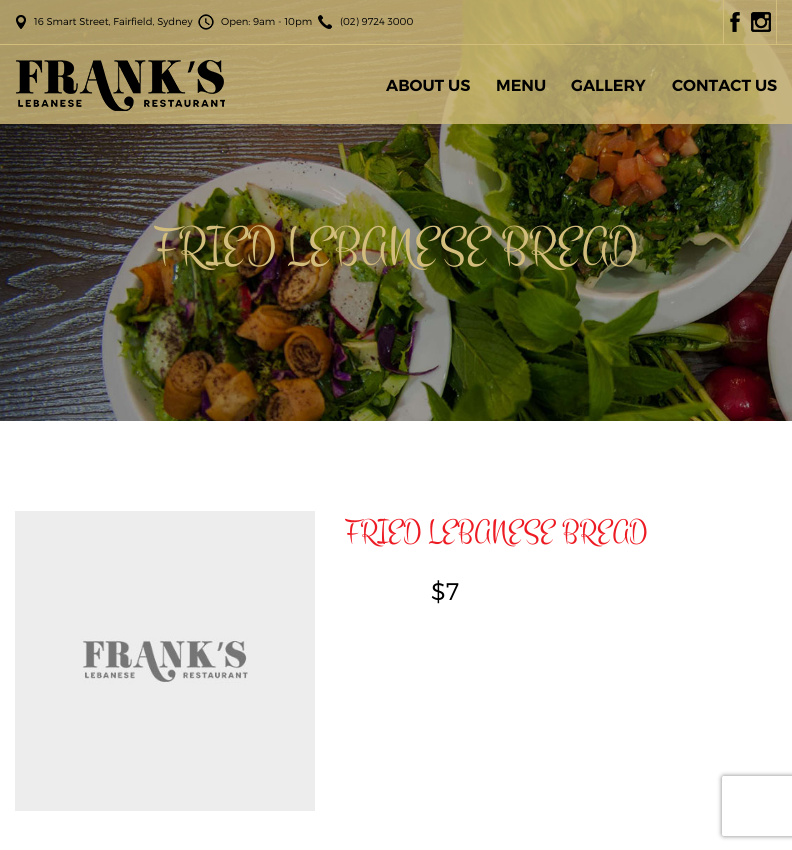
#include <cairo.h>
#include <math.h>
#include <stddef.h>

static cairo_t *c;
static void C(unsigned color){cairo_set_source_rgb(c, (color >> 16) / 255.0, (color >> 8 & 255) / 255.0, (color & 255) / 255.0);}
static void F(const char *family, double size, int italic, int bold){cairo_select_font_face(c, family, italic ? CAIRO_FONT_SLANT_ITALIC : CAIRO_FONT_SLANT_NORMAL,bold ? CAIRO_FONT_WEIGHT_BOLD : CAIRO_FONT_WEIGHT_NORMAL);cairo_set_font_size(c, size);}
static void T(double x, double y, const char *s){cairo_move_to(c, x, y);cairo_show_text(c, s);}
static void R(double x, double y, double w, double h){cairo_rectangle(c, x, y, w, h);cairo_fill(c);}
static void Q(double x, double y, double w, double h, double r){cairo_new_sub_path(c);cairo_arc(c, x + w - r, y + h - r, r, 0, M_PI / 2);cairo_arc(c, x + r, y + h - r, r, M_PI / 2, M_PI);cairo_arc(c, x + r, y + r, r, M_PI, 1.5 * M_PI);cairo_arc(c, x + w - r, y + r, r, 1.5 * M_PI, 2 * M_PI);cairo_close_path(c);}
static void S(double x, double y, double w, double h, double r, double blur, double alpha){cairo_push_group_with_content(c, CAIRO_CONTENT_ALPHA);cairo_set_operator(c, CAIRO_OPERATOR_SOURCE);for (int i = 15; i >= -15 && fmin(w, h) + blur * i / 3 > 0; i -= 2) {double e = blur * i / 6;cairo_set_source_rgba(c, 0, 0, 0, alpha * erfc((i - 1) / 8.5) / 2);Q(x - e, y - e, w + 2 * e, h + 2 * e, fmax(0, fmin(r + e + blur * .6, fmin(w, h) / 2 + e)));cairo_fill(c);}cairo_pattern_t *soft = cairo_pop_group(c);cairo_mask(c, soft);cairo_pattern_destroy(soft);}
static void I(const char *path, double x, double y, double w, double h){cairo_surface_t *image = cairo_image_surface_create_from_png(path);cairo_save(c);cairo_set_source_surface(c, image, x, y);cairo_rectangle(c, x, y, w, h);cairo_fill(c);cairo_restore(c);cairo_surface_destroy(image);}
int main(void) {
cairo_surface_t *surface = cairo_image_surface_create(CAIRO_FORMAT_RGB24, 792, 850);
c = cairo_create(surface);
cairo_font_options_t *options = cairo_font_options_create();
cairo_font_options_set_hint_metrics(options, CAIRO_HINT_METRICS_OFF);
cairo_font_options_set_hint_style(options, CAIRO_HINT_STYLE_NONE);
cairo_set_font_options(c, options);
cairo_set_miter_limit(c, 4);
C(0xffffff);
cairo_paint(c);
I("7.png",0,0,792,421);
cairo_set_source_rgba(c,0.824,0.741,0.486,0.8);
R(0,0,792,44);
C(0xd2bd7c);
R(0,44,792,1);
I("1.png",16,15,10,14);
F("Montserrat Light",10,0,0);
C(0x000000);
T(34,25,"16 Smart Street, Fairfield, Sydney");
I("2.png",198,14,16,16);
T(221,25,"Open: 9am - 10pm");
I("3.png",318,15,14,14);
T(340,25,"(02) 9724 3000");
C(0xd2bd7c);
R(776,0,1,44);
R(723,0,1,44);
I("4.png",730,12,10,20);
I("5.png",751,12,20,20);
cairo_set_source_rgba(c,0.824,0.741,0.486,0.8);
R(0,45,792,79);
I("6.png",16,60,209,51);
F("Montserrat SemiBold",16,0,0);
C(0x000000);
T(386,91,"ABOUT US");
T(496,91,"MENU");
T(571,91,"GALLERY");
T(672,91,"CONTACT US");
F("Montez",48,0,0);
C(0xd2bd7c);
T(154,258,"FRIED LEBANESE BREAD");
I("8.png",15,511,300,300);
F("Montez",30,0,0);
C(0xed1c24);
T(345,539,"FRIED LEBANESE BREAD");
F("Montserrat Light",24,0,0);
C(0x000000);
T(431,600,"$7");
cairo_save(c);
cairo_set_fill_rule(c,CAIRO_FILL_RULE_EVEN_ODD);
cairo_new_path(c);
cairo_move_to(c,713,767);
cairo_line_to(c,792,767);
cairo_line_to(c,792,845);
cairo_line_to(c,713,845);
cairo_close_path(c);
cairo_move_to(c,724,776);
cairo_line_to(c,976,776);
cairo_curve_to(c,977,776,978,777,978,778);
cairo_line_to(c,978,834);
cairo_curve_to(c,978,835,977,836,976,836);
cairo_line_to(c,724,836);
cairo_curve_to(c,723,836,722,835,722,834);
cairo_line_to(c,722,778);
cairo_curve_to(c,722,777,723,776,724,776);
cairo_close_path(c);
cairo_clip(c);
C(0x808080);
S(722,776,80,60,2,2.5,1);
cairo_restore(c);
cairo_surface_write_to_png(surface, "o.png");
cairo_font_options_destroy(options);
cairo_destroy(c);
cairo_surface_destroy(surface);
return 0;
}
